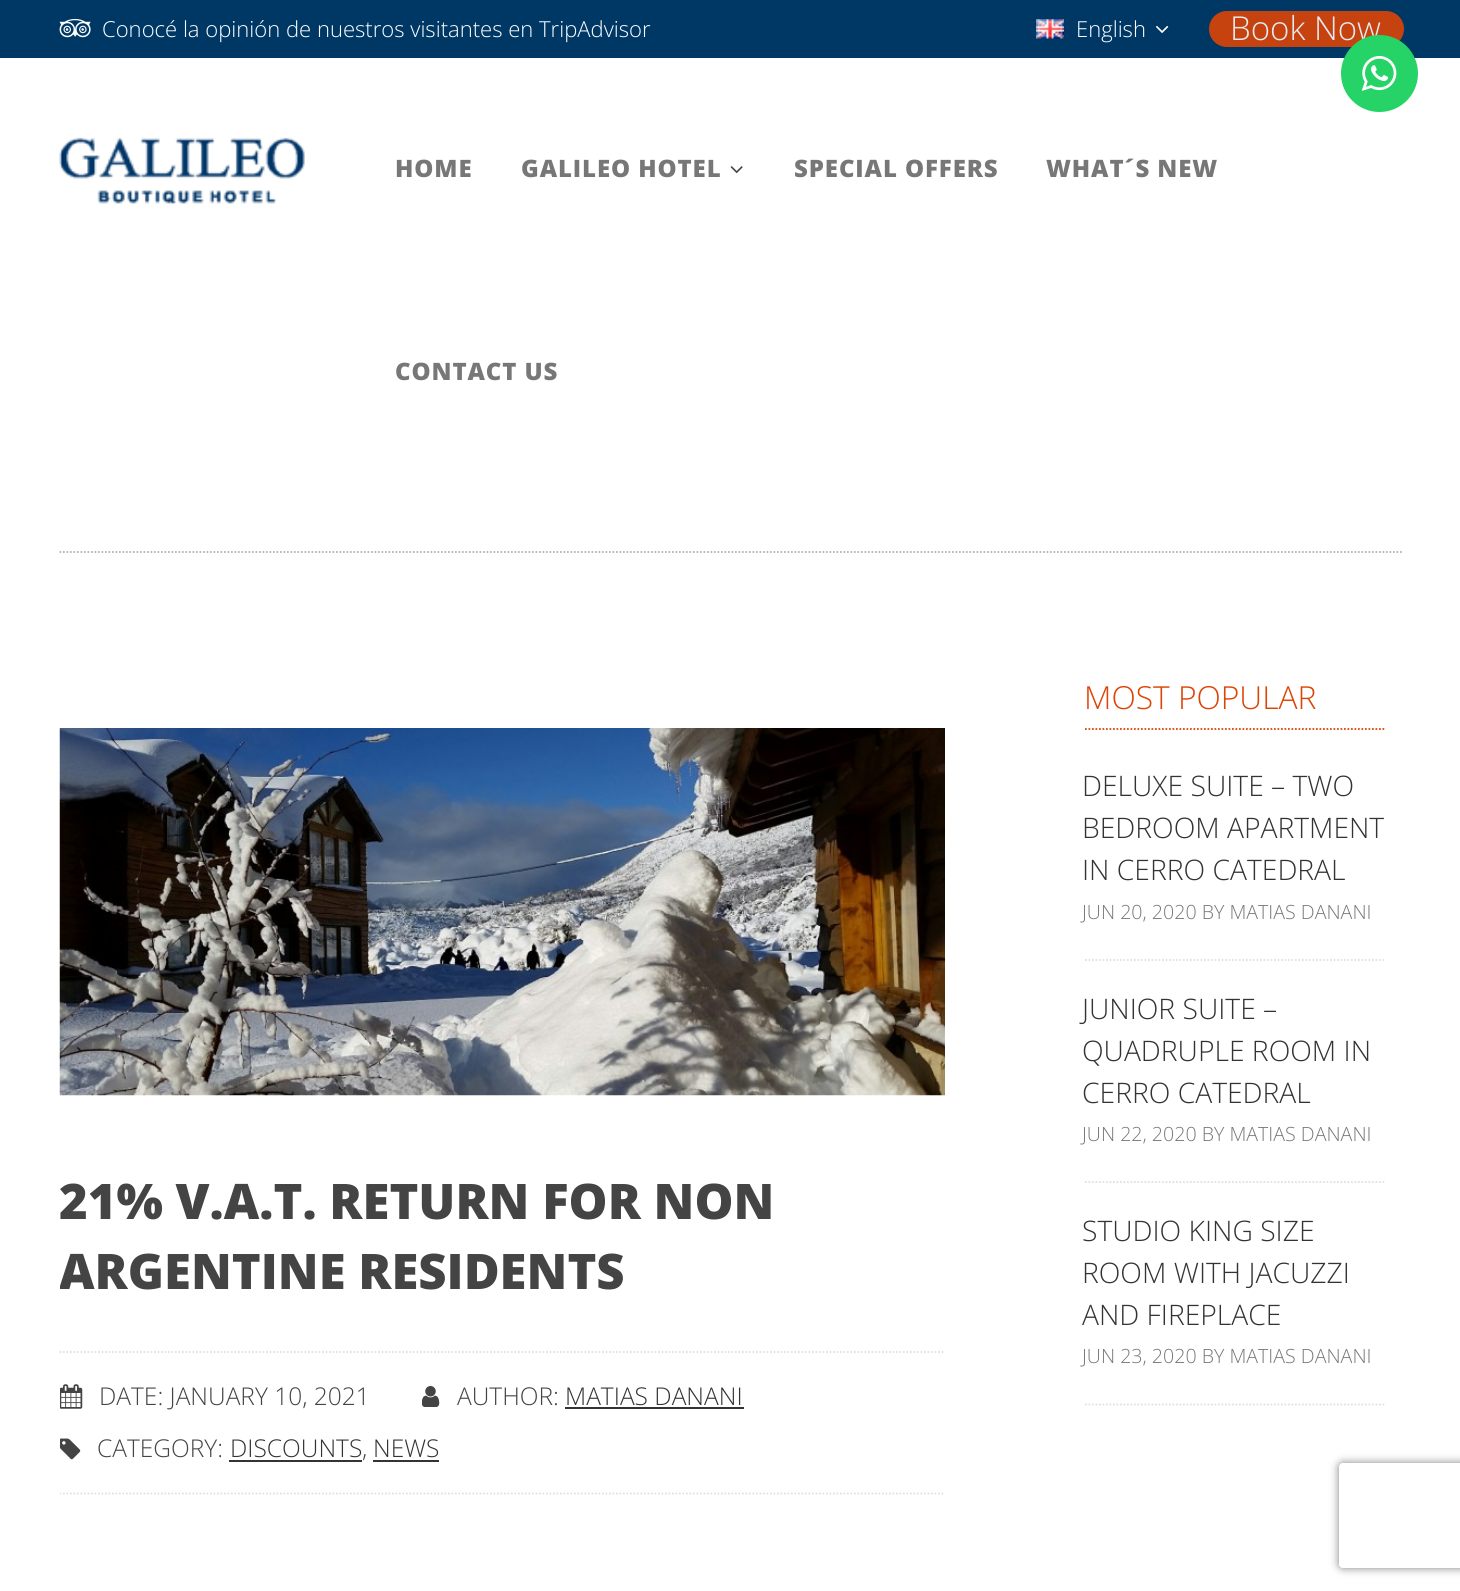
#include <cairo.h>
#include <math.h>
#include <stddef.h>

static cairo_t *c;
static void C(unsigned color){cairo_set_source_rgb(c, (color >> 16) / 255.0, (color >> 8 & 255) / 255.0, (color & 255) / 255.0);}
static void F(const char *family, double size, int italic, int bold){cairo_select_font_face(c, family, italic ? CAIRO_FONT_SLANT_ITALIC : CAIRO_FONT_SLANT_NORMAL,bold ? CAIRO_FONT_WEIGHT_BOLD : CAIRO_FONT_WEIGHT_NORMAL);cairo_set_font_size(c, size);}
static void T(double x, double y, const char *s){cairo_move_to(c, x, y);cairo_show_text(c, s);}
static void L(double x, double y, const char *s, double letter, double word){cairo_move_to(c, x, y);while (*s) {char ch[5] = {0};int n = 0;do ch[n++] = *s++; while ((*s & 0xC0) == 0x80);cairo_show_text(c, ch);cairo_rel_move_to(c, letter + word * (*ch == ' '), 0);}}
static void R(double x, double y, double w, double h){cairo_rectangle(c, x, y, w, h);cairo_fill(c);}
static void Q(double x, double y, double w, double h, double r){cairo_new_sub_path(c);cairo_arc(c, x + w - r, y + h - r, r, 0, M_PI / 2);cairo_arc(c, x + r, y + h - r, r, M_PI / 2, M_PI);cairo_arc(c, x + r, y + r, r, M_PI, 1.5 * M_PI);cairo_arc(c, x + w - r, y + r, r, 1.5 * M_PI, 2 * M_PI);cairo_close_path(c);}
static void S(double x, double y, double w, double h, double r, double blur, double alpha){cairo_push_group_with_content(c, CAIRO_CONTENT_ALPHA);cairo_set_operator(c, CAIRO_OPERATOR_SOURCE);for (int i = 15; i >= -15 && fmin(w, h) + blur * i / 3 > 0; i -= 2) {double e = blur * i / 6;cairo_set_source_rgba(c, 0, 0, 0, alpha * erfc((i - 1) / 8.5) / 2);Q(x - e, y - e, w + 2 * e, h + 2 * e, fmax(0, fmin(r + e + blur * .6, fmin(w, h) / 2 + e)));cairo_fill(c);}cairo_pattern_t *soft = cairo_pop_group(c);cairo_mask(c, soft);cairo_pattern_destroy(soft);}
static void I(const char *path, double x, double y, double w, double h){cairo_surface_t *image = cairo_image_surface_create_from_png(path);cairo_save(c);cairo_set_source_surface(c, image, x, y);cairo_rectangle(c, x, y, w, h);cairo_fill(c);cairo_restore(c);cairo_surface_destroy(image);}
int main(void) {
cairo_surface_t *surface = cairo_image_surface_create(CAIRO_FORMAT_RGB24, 1460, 1591);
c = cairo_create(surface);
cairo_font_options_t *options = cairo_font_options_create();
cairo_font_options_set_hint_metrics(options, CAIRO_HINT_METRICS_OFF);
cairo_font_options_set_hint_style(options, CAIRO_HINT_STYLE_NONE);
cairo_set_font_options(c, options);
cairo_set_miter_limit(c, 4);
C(0xffffff);
cairo_paint(c);
C(0x003865);
R(0,0,1460,58);
I("1.png",59,18,32,20);
F("Open Sans Light",22.05,0,0);
C(0xffffff);
T(102,37,"Conocé la opinión de nuestros visitantes en TripAdvisor");
I("2.png",1036,19,28,20);
T(1076,37,"English");
I("3.png",1156,25,13,8);
C(0xc6430f);
Q(1209,11,195,36,18);
cairo_fill(c);
F("Open Sans Light",33,0,0);
C(0xe6ebf0);
T(1230,40,"Book Now");
I("4.png",59,137,246,68);
F("Open Sans ExtraBold",24,0,0);
C(0x777777);
L(395,177,"HOME",.9,0);
L(521,177,"GALILEO HOTEL",.9,0);
I("5.png",730,166,13,8);
L(794,177,"SPECIAL OFFERS",.9,0);
L(1046,177,"WHAT´S NEW",.9,0);
L(395,380,"CONTACT US",.9,0);
cairo_new_path(c);
cairo_move_to(c,59.5,552);
cairo_line_to(c,1403.5,552);
C(0xb3b3b3);
cairo_set_line_width(c,1.8);
cairo_set_dash(c,(double[]){1.75,1.75},2,0);
cairo_stroke(c);
I("6.png",59,728,886,368);
F("Open Sans ExtraBold",49,0,0);
C(0x444444);
T(59,1219,"21% V.A.T. RETURN FOR NON");
cairo_save(c);
cairo_rectangle(c,60,1166,885,140);
cairo_clip(c);
T(59,1289,"ARGENTINE RESIDENTS");
cairo_restore(c);
cairo_new_path(c);
cairo_move_to(c,59.5,1352);
cairo_line_to(c,945,1352);
C(0xe0e0e0);
cairo_stroke(c);
cairo_save(c);
cairo_rectangle(c,60,676,885,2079);
cairo_clip(c);
cairo_new_path(c);
cairo_move_to(c,59.5,1493.5);
cairo_line_to(c,945,1493.5);
cairo_stroke(c);
cairo_restore(c);
I("7.png",60,1384,23,25);
F("Open Sans Light",24.5,0,0);
C(0x444444);
T(99,1405,"DATE: JANUARY 10, 2021");
I("8.png",422,1386,18,21);
T(457,1405,"AUTHOR:");
C(0x333333);
T(565,1405,"MATIAS DANANI");
R(565,1407,179,2);
I("9.png",60,1438,21,22);
C(0x444444);
T(97,1457,"CATEGORY:");
C(0x333333);
T(230,1457,"DISCOUNTS");
R(229,1460,133,2);
C(0x444444);
T(362,1457,",");
C(0x333333);
T(373,1457,"NEWS");
R(373,1460,66,2);
cairo_new_path(c);
cairo_move_to(c,1085,729);
cairo_line_to(c,1386,729);
C(0xdc4405);
cairo_stroke(c);
F("Open Sans Light",31.75,0,0);
T(1084,709,"MOST POPULAR");
cairo_new_path(c);
cairo_move_to(c,1085,960);
cairo_line_to(c,1386,960);
C(0xe0e0e0);
cairo_stroke(c);
F("Open Sans Light",28.25,0,0);
C(0x333333);
T(1082,796,"DELUXE SUITE – TWO");
T(1082,838,"BEDROOM APARTMENT");
T(1082,880,"IN CERRO CATEDRAL");
F("Open Sans Light",19.6,0,0);
C(0x777777);
T(1082,919,"JUN 20, 2020 BY MATIAS DANANI");
cairo_new_path(c);
cairo_move_to(c,1085,1182);
cairo_line_to(c,1386,1182);
C(0xe0e0e0);
cairo_stroke(c);
F("Open Sans Light",28.25,0,0);
C(0x333333);
T(1082,1019,"JUNIOR SUITE –");
T(1082,1061,"QUADRUPLE ROOM IN");
T(1082,1103,"CERRO CATEDRAL");
F("Open Sans Light",19.6,0,0);
C(0x777777);
T(1082,1141,"JUN 22, 2020 BY MATIAS DANANI");
cairo_new_path(c);
cairo_move_to(c,1085,1404.5);
cairo_line_to(c,1386,1404.5);
C(0xe0e0e0);
cairo_stroke(c);
F("Open Sans Light",28.25,0,0);
C(0x333333);
T(1082,1241,"STUDIO KING SIZE");
T(1082,1283,"ROOM WITH JACUZZI");
T(1082,1325,"AND FIREPLACE");
F("Open Sans Light",19.6,0,0);
C(0x777777);
T(1082,1363,"JUN 23, 2020 BY MATIAS DANANI");
C(0x25d366);
cairo_new_path(c);
cairo_arc(c,1379.5,73.5,38.5,0,2 * M_PI);
cairo_fill(c);
I("10.png",1362,56,35,35);
cairo_save(c);
cairo_set_fill_rule(c,CAIRO_FILL_RULE_EVEN_ODD);
cairo_new_path(c);
cairo_move_to(c,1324,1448);
cairo_line_to(c,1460,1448);
cairo_line_to(c,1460,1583);
cairo_line_to(c,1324,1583);
cairo_close_path(c);
cairo_move_to(c,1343,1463);
cairo_line_to(c,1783,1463);
cairo_curve_to(c,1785,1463,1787,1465,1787,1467);
cairo_line_to(c,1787,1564);
cairo_curve_to(c,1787,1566,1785,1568,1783,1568);
cairo_line_to(c,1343,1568);
cairo_curve_to(c,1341,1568,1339,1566,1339,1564);
cairo_line_to(c,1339,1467);
cairo_curve_to(c,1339,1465,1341,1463,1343,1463);
cairo_close_path(c);
cairo_clip(c);
C(0x808080);
S(1339,1463,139,105,4,4.5,1);
cairo_restore(c);
cairo_surface_write_to_png(surface, "o.png");
cairo_font_options_destroy(options);
cairo_destroy(c);
cairo_surface_destroy(surface);
return 0;
}
